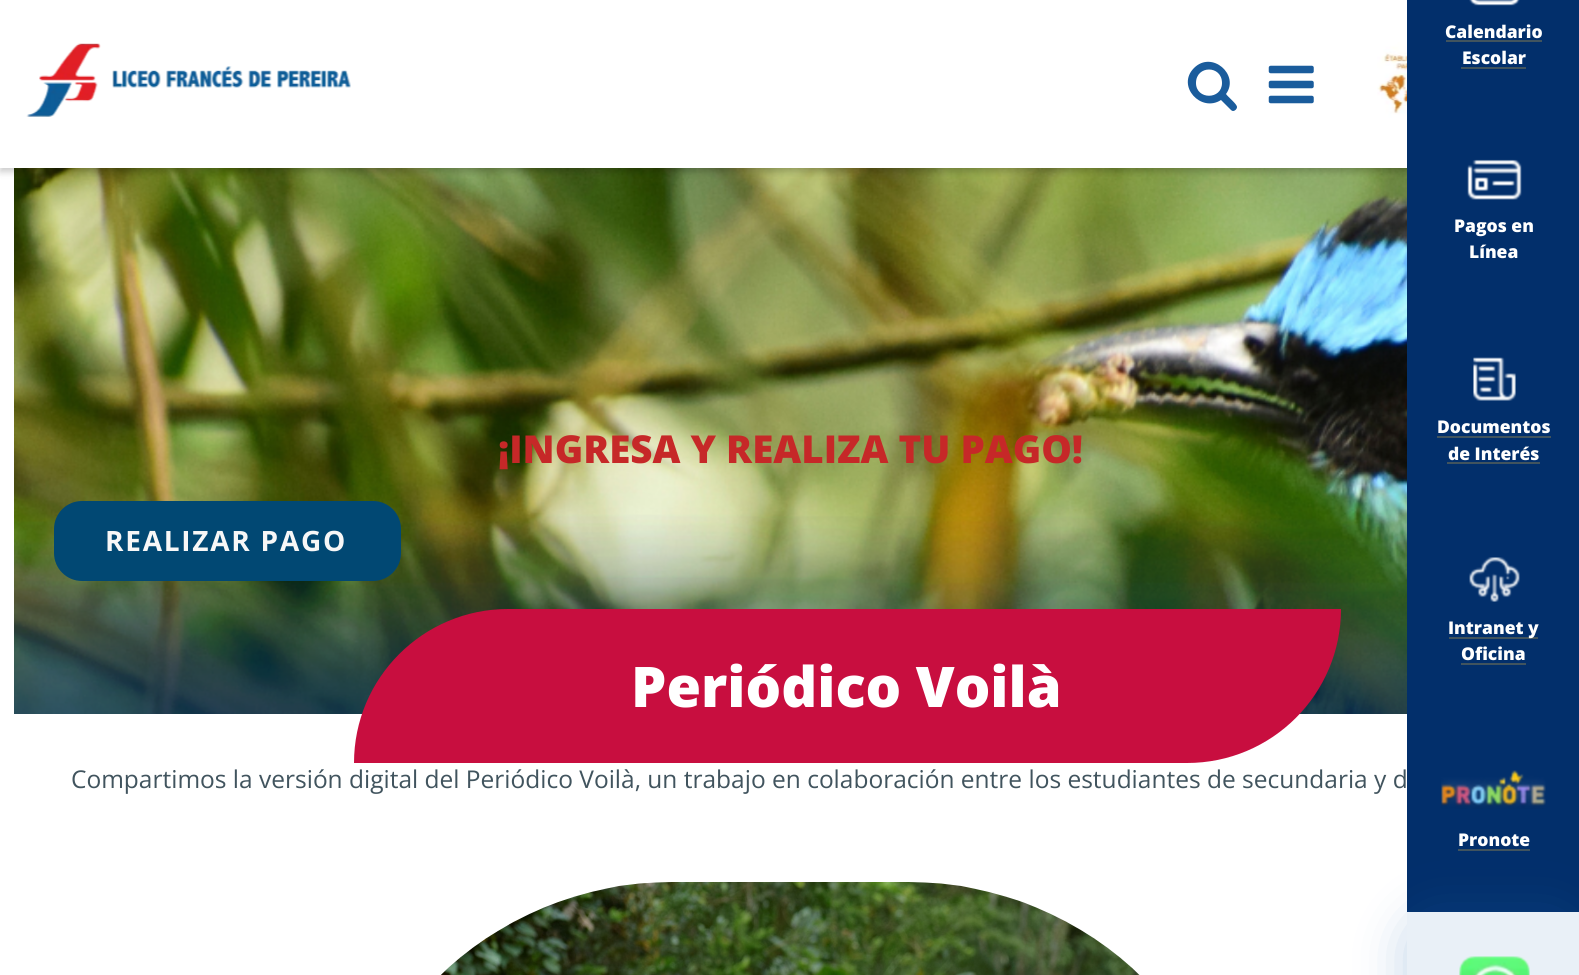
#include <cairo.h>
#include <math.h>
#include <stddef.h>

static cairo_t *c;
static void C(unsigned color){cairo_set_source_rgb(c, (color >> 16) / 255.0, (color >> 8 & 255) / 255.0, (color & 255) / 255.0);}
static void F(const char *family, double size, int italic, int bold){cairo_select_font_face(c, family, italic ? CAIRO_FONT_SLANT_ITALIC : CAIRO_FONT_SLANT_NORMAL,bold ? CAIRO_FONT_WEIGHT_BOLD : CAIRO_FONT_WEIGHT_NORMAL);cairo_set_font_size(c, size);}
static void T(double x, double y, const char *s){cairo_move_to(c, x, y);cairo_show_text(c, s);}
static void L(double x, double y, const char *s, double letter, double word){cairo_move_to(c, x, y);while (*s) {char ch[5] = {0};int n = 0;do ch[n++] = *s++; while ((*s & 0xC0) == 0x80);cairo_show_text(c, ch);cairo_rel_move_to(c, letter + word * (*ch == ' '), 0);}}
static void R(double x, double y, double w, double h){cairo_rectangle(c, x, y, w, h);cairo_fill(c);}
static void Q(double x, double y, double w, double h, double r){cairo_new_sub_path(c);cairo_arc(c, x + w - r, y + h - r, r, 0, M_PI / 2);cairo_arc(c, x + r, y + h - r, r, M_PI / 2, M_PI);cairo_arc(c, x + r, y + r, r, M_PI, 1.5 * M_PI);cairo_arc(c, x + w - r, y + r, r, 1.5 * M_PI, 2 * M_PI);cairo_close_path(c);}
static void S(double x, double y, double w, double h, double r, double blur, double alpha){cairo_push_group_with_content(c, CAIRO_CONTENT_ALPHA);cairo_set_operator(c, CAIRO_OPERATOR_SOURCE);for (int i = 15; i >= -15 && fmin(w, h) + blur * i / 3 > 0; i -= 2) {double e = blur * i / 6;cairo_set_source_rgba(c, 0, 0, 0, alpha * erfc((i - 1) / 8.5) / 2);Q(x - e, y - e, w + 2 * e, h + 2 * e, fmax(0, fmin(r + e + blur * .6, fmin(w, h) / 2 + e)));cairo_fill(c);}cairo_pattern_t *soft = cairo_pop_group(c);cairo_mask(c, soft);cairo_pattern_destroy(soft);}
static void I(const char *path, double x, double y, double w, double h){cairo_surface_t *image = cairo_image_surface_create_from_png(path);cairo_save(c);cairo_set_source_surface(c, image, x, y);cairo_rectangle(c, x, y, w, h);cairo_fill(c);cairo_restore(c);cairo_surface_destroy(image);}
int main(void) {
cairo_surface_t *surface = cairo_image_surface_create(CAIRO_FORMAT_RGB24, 1579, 975);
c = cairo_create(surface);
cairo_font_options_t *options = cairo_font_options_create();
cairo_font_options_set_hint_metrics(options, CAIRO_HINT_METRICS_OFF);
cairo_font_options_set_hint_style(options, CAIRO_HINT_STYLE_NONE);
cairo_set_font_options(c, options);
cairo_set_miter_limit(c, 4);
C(0xffffff);
cairo_paint(c);
I("4.png",14,168,1393,546);
C(0x000000);
S(0,4,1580,168,0,3.5,.2);
C(0xffffff);
R(0,0,1407,168);
I("1.png",26,43,325,74);
C(0x1a5c9c);
cairo_new_path(c);
cairo_move_to(c,1222,83);
cairo_curve_to(c,1222,100,1196,100,1196,83);
cairo_curve_to(c,1196,65,1222,65,1222,83);
cairo_close_path(c);
cairo_move_to(c,1237,107);
cairo_curve_to(c,1237,104,1228,97,1226,94);
cairo_curve_to(c,1240,75,1212,50,1194,68);
cairo_curve_to(c,1176,86,1201,113,1221,100);
cairo_line_to(c,1231,110);
cairo_curve_to(c,1231,110,1232,111,1233,111);
cairo_curve_to(c,1235,111,1237,109,1237,107);
cairo_close_path(c);
cairo_fill(c);
I("2.png",1268,65,46,39);
I("3.png",1377,39,30,83);
C(0x022f6b);
R(1407,0,172,912);
I("5.png",1469,0,51,6);
F("Open Sans ExtraBold",17.5,0,0);
C(0xffffff);
T(1445,38,"Calendario");
C(0x41545e);
R(1446,40,96,2);
C(0xffffff);
T(1462,64,"Escolar");
C(0x41545e);
R(1461,67,65,2);
I("6.png",1467,159,55,41);
C(0xffffff);
T(1454,232,"Pagos en");
T(1469,258,"Línea");
I("7.png",1473,357,43,44);
T(1437,433,"Documentos");
C(0x41545e);
R(1437,436,114,2);
C(0xffffff);
T(1448,460,"de Interés");
C(0x41545e);
R(1447,462,93,2);
I("8.png",1469,557,51,45);
R(1449,637,89,2);
C(0xffffff);
T(1448,634,"Intranet y");
T(1461,660,"Oficina");
C(0x41545e);
R(1461,663,65,2);
I("9.png",1441,770,105,39);
C(0xffffff);
T(1458,846,"Pronote");
C(0x41545e);
R(1458,849,72,2);
C(0x1f65af);
S(1407,915,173,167,30,25.5,.28);
C(0xe9f0f7);
R(1407,912,172,63);
I("10.png",1459,956,71,19);
C(0xc80e3f);
cairo_new_path(c);
cairo_move_to(c,508,609);
cairo_line_to(c,1341,609);
cairo_curve_to(c,1341,694,1272,763,1187,763);
cairo_line_to(c,354,763);
cairo_curve_to(c,354,678,423,609,508,609);
cairo_close_path(c);
cairo_fill(c);
F("Open Sans ExtraBold",56,0,0);
C(0xffffff);
T(631,707,"Periódico Voilà");
F("Open Sans",24.5,0,0);
C(0x41545e);
T(71,788,"Compartimos la versión digital del Periódico Voilà, un trabajo en colaboración entre los estudiantes de secundaria y d");
I("11.png",441,882,699,93);
F("Open Sans ExtraBold",38.5,0,0);
C(0xc62828);
T(498,463,"¡INGRESA Y REALIZA TU PAGO!");
C(0x014873);
Q(56,503,343,76,26);
cairo_fill_preserve(c);
cairo_set_line_width(c,4);
cairo_stroke(c);
F("Open Sans",28,0,1);
C(0xf7f7f7);
L(105,551,"REALIZAR PAGO",1.75,0);
cairo_surface_write_to_png(surface, "o.png");
cairo_font_options_destroy(options);
cairo_destroy(c);
cairo_surface_destroy(surface);
return 0;
}
